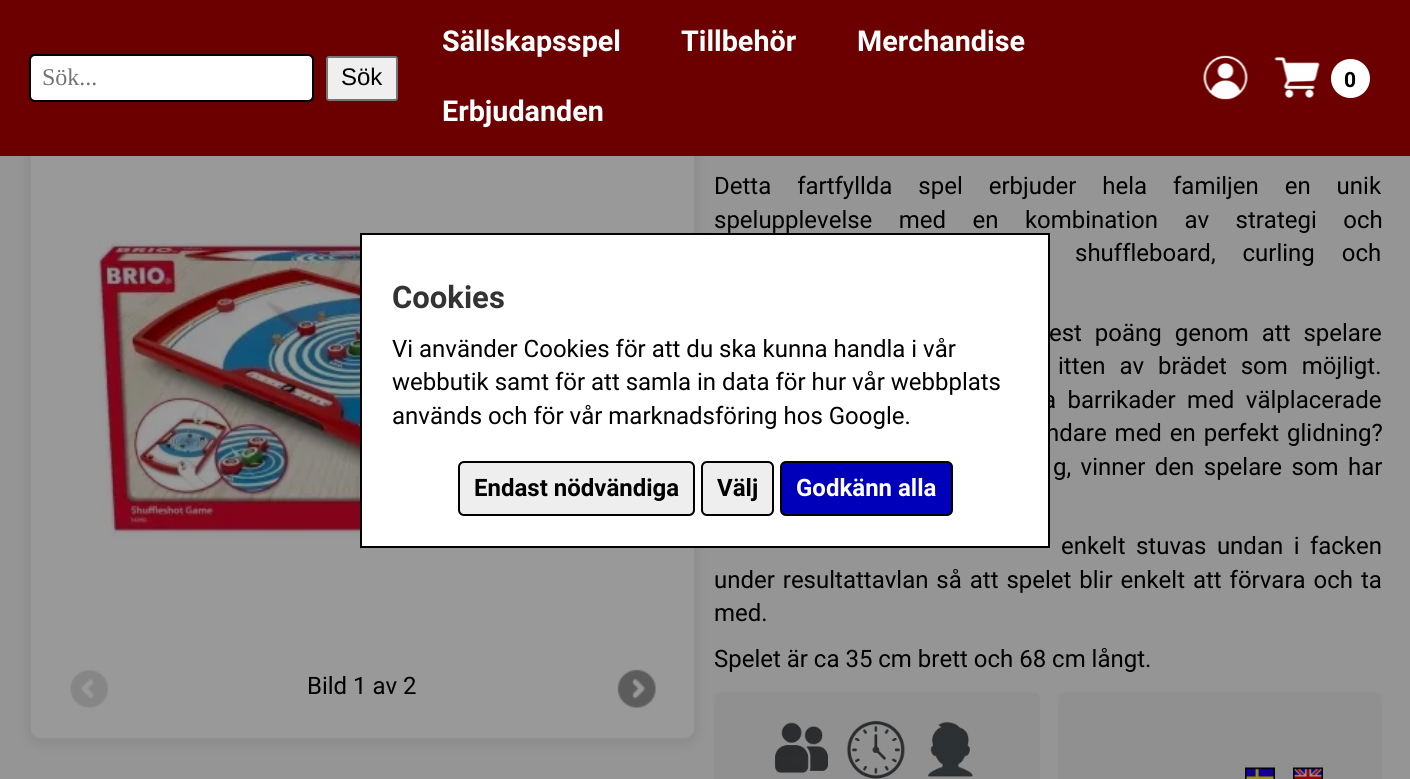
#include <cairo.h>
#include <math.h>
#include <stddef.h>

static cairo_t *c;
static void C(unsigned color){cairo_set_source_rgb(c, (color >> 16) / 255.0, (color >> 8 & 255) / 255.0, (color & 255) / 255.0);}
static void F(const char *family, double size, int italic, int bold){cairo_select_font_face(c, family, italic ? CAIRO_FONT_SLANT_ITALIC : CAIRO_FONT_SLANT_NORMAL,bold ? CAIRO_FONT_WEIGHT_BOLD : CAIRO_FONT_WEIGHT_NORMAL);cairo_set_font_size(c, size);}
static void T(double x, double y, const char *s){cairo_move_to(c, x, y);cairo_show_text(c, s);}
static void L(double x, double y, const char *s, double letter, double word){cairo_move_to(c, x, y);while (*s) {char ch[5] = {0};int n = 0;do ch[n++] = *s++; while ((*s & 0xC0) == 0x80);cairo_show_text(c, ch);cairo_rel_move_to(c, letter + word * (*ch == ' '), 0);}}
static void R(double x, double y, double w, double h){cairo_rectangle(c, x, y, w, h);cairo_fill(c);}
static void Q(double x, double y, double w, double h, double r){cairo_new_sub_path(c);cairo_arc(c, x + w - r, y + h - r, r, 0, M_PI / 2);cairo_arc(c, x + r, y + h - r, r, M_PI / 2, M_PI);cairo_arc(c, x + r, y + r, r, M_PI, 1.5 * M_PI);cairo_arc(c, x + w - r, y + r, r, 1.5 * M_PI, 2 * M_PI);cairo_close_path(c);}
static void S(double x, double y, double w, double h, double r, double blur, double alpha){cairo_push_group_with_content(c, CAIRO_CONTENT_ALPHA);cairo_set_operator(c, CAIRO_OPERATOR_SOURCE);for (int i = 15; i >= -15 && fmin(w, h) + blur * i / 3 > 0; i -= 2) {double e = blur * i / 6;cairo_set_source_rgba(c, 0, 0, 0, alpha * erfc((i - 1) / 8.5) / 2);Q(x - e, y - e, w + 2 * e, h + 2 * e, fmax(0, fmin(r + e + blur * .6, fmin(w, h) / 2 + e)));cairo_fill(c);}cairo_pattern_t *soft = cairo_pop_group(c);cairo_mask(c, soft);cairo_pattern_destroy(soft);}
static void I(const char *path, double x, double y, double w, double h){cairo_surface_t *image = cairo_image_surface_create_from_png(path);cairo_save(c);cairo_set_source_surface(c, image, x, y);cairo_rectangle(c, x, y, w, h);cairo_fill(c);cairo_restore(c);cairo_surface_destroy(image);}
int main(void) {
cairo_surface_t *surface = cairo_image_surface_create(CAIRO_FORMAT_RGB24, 1410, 779);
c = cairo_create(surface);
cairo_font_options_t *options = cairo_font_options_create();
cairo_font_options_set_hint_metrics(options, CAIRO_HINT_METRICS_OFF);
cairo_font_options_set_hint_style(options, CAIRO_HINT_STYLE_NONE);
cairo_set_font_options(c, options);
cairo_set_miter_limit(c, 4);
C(0x959595);
cairo_paint(c);
C(0x000000);
S(29,116,667,627,12,6,.1);
C(0x999999);
Q(30,114,665,625,11);
cairo_fill_preserve(c);
C(0x8f8f8f);
cairo_stroke(c);
C(0x6c0000);
R(0,0,1410,156);
C(0x000000);
S(29,56,285,48,6,1.5,.1);
C(0xffffff);
Q(30,55,283,46,5);
cairo_fill_preserve(c);
C(0x000000);
cairo_stroke(c);
F("Liberation Serif",24,0,0);
C(0x757575);
T(42,85,"Sök...");
C(0xefefef);
Q(327,57,70,43,2);
cairo_fill_preserve(c);
C(0x767676);
cairo_stroke(c);
F("Liberation Sans",24,0,0);
C(0x000000);
T(341,85,"Sök");
F("Roboto",28.75,0,1);
C(0xffffff);
T(442,51,"Sällskapsspel");
T(681,51,"Tillbehör");
T(857,51,"Merchandise");
T(442,121,"Erbjudanden");
I("1.png",1203,55,45,45);
I("2.png",1274,57,46,41);
cairo_arc(c,1350.5,78.5,19.5,0,2 * M_PI);
cairo_fill(c);
F("Roboto",21,0,1);
C(0x000000);
T(1344,87,"0");
F("Roboto",24,0,0);
L(714,194,"Detta fartfyllda spel erbjuder hela familjen en unik",0,20);
L(714,228,"spelupplevelse med en kombination av strategi och",0,20.5);
L(1075,261,"shuffleboard, curling och",0,21);
L(1049,341,"est poäng genom att spelare",0,7);
L(1058,374,"itten av brädet som möjligt.",0,8);
L(1043,408,"a barrikader med välplacerade",0,5.5);
L(1046,441,"ndare med en perfekt glidning?",0,2);
L(1053,475,"g, vinner den spelare som har",0,3.5);
L(1061,554,"enkelt stuvas undan i facken",0,4.5);
L(714,588,"under resultattavlan så att spelet blir enkelt att förvara och ta",0,2);
T(714,621,"med.");
T(714,667,"Spelet är ca 35 cm brett och 68 cm långt.");
C(0x909090);
Q(714,692,326,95,8);
cairo_fill(c);
I("3.png",775,722,53,51);
I("4.png",846,721,59,58);
I("5.png",928,722,45,55);
Q(1058,692,324,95,8);
cairo_fill(c);
I("6.png",1245,767,30,12);
I("7.png",1293,767,30,12);
I("8.png",97,240,263,300);
I("9.png",70,670,38,38);
C(0x000000);
T(307,694,"Bild 1 av 2");
I("10.png",617,669,39,39);
C(0xffffff);
cairo_rectangle(c,361,234,688,313);
cairo_fill_preserve(c);
C(0x000000);
cairo_stroke(c);
F("Roboto",31,0,1);
C(0x333333);
T(392,308,"Cookies");
F("Roboto",24,0,0);
C(0x000000);
T(392,357,"Vi använder Cookies för att du ska kunna handla i vår");
T(392,390,"webbutik samt för att samla in data för hur vår webbplats");
T(392,424,"används och för vår marknadsföring hos Google.");
C(0xeeeeee);
Q(459,462,235,53,5);
cairo_fill_preserve(c);
C(0x000000);
cairo_stroke(c);
F("Roboto",24,0,1);
T(474,496,"Endast nödvändiga");
C(0xeeeeee);
Q(702,462,71,53,5);
cairo_fill_preserve(c);
C(0x000000);
cairo_stroke(c);
T(717,496,"Välj");
C(0x0000bb);
Q(781,462,171,53,5);
cairo_fill_preserve(c);
C(0x000000);
cairo_stroke(c);
C(0xffffff);
T(796,496,"Godkänn alla");
cairo_surface_write_to_png(surface, "o.png");
cairo_font_options_destroy(options);
cairo_destroy(c);
cairo_surface_destroy(surface);
return 0;
}
